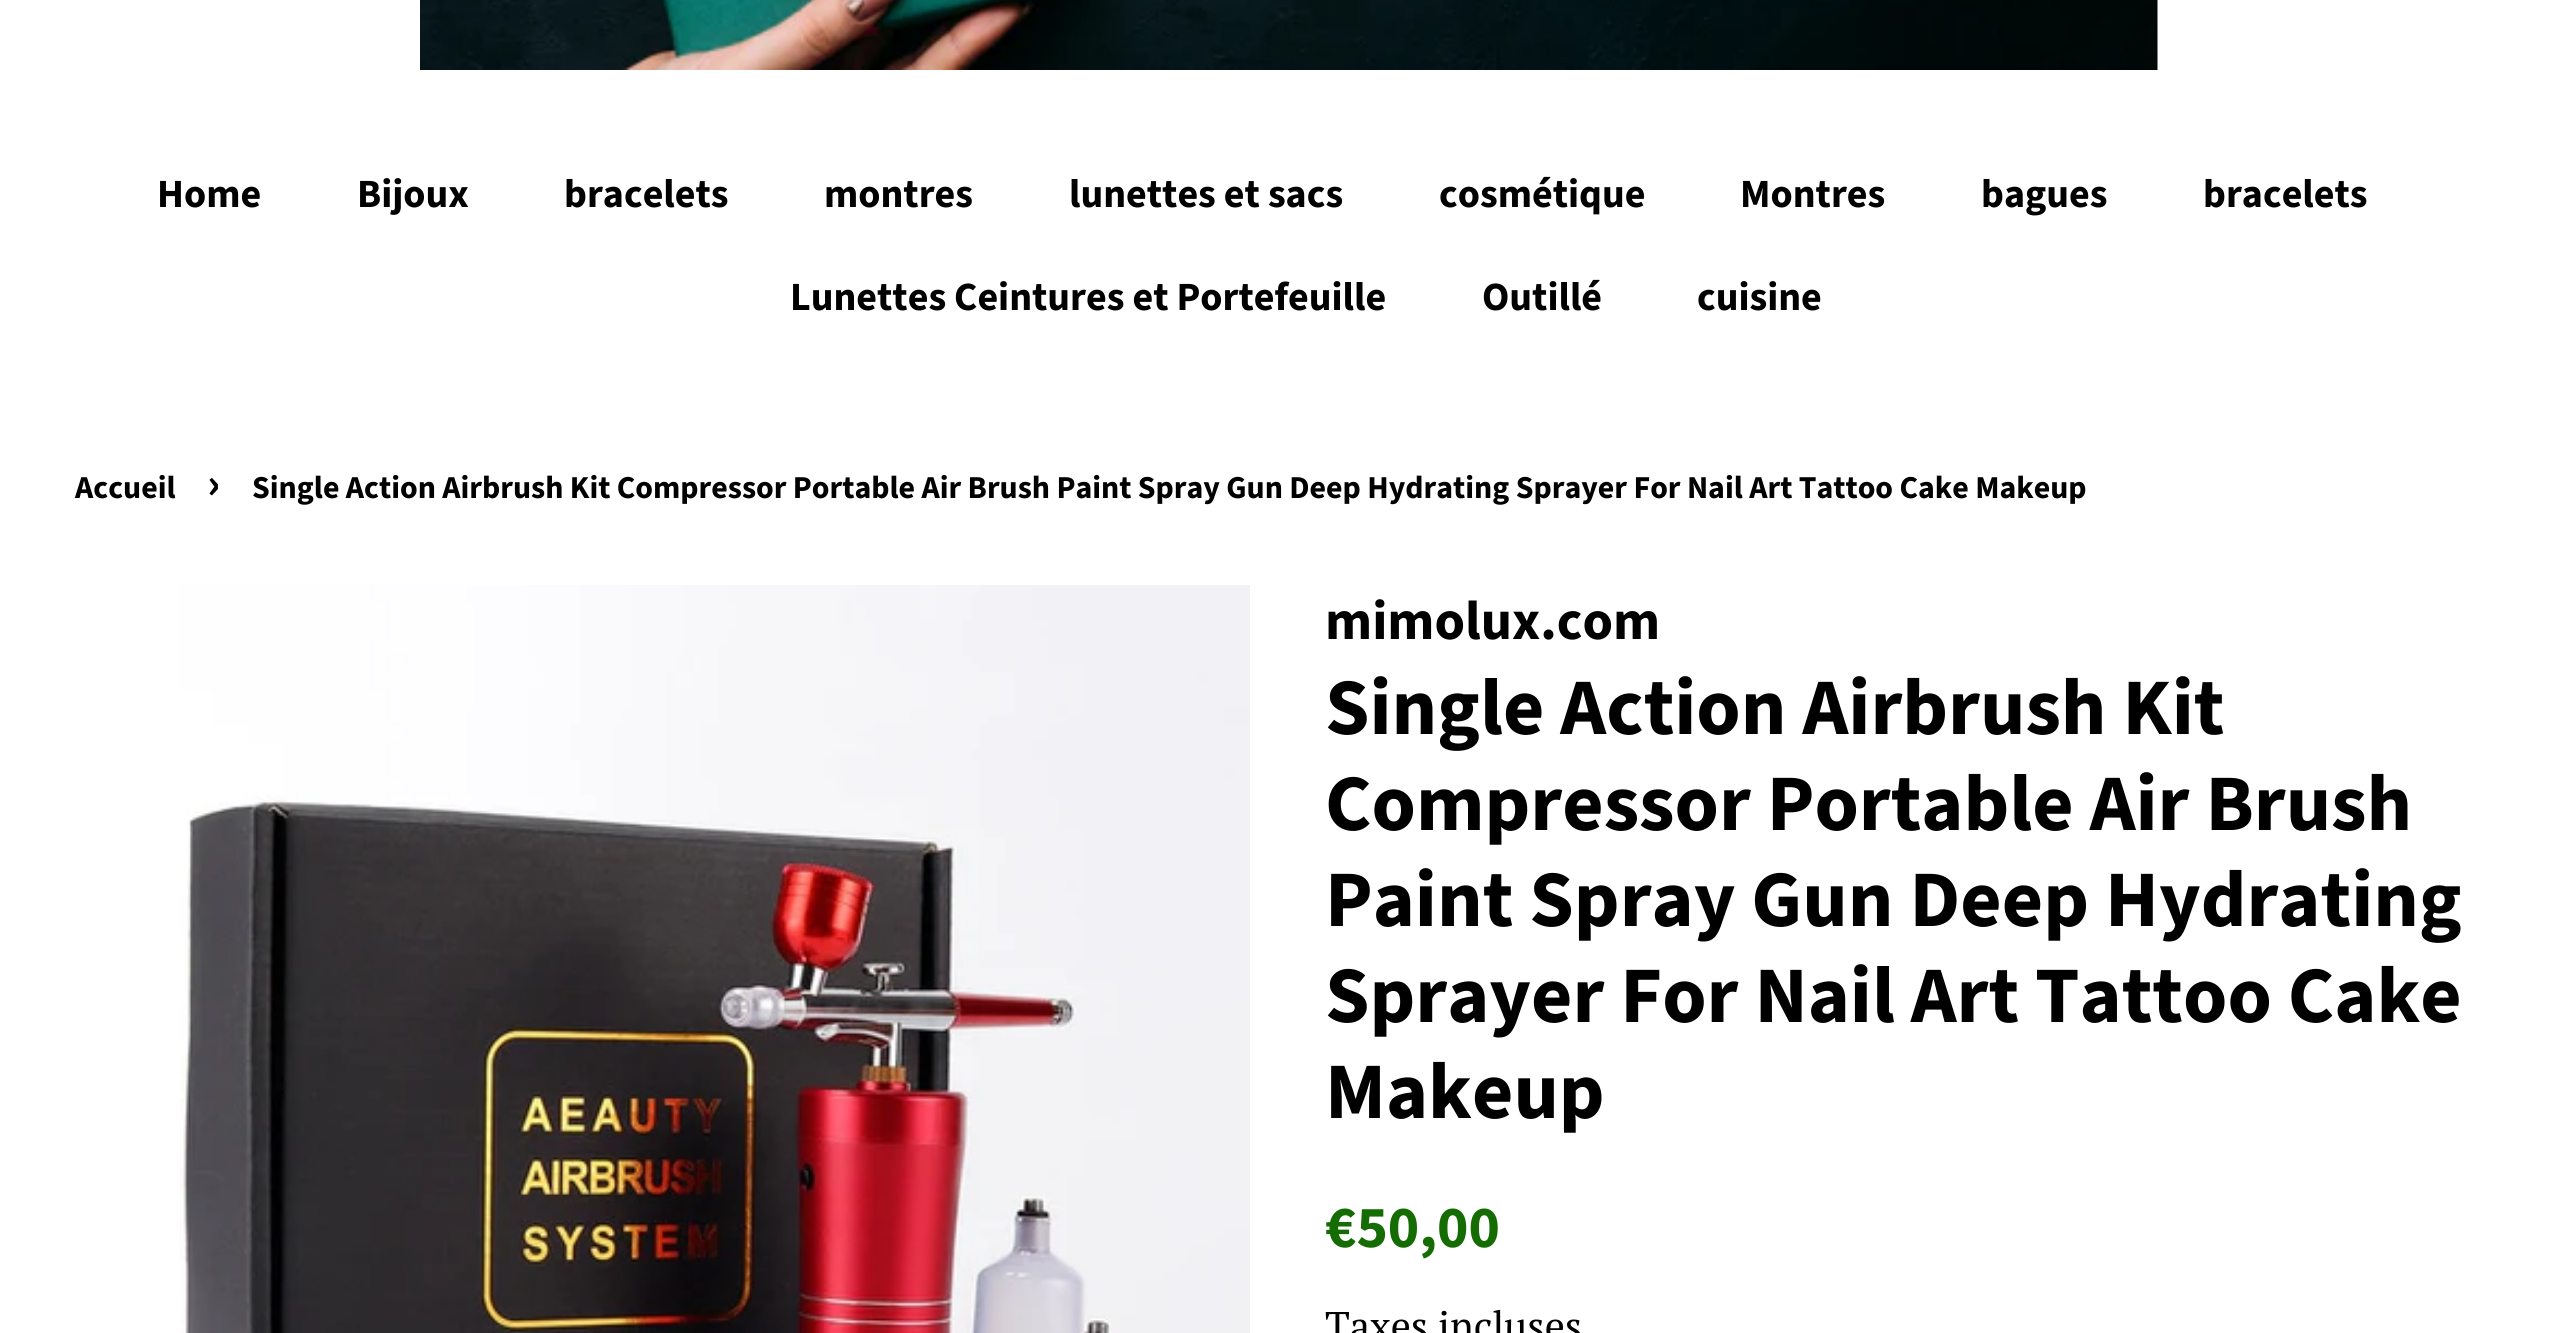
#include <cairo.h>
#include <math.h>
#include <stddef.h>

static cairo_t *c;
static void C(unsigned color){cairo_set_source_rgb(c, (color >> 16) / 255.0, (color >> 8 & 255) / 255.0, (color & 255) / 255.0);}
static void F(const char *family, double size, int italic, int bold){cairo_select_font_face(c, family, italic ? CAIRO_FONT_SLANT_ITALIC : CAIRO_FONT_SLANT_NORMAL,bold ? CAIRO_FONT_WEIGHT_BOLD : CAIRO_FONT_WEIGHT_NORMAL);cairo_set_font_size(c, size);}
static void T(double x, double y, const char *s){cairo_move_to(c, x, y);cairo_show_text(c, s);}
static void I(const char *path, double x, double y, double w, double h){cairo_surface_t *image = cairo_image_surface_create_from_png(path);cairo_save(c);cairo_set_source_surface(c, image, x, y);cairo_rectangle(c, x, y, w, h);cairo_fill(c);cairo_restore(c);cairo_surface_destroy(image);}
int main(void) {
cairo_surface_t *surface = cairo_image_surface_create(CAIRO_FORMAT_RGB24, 2574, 1333);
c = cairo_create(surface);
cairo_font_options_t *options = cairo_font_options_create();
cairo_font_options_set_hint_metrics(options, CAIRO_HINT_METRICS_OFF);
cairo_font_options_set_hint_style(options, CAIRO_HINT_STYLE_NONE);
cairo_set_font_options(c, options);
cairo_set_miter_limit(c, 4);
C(0xffffff);
cairo_paint(c);
I("1.png",420,0,1738,70);
F("Source Sans Pro",40,0,1);
C(0x000000);
T(157,207,"Home");
T(357,207,"Bijoux");
T(564,207,"bracelets");
T(824,207,"montres");
T(1069,207,"lunettes et sacs");
T(1439,207,"cosmétique");
T(1740,207,"Montres");
T(1981,207,"bagues");
T(2203,207,"bracelets");
T(790,310,"Lunettes Ceintures et Portefeuille");
T(1482,310,"Outillé");
T(1697,310,"cuisine");
F("Source Sans Pro",31.88,0,1);
T(75,498,"Accueil");
F("Source Sans Pro",45,0,1);
T(207,498,"›");
F("Source Sans Pro",31.88,0,1);
T(252,498,"Single Action Airbrush Kit Compressor Portable Air Brush Paint Spray Gun Deep Hydrating Sprayer For Nail Art Tattoo Cake Makeup");
I("2.png",180,585,1070,748);
F("Source Sans Pro",55,0,1);
T(1325,639,"mimolux.com");
F("Source Sans Pro",80,0,1);
T(1325,734,"Single Action Airbrush Kit");
T(1325,830,"Compressor Portable Air Brush");
T(1325,926,"Paint Spray Gun Deep Hydrating");
T(1325,1022,"Sprayer For Nail Art Tattoo Cake");
T(1325,1118,"Makeup");
F("Source Sans Pro",59.5,0,1);
C(0x156c03);
T(1325,1247,"€50,00");
F("PT Serif",40,0,0);
C(0x000000);
T(1325,1340,"Taxes incluses");
cairo_surface_write_to_png(surface, "o.png");
cairo_font_options_destroy(options);
cairo_destroy(c);
cairo_surface_destroy(surface);
return 0;
}
